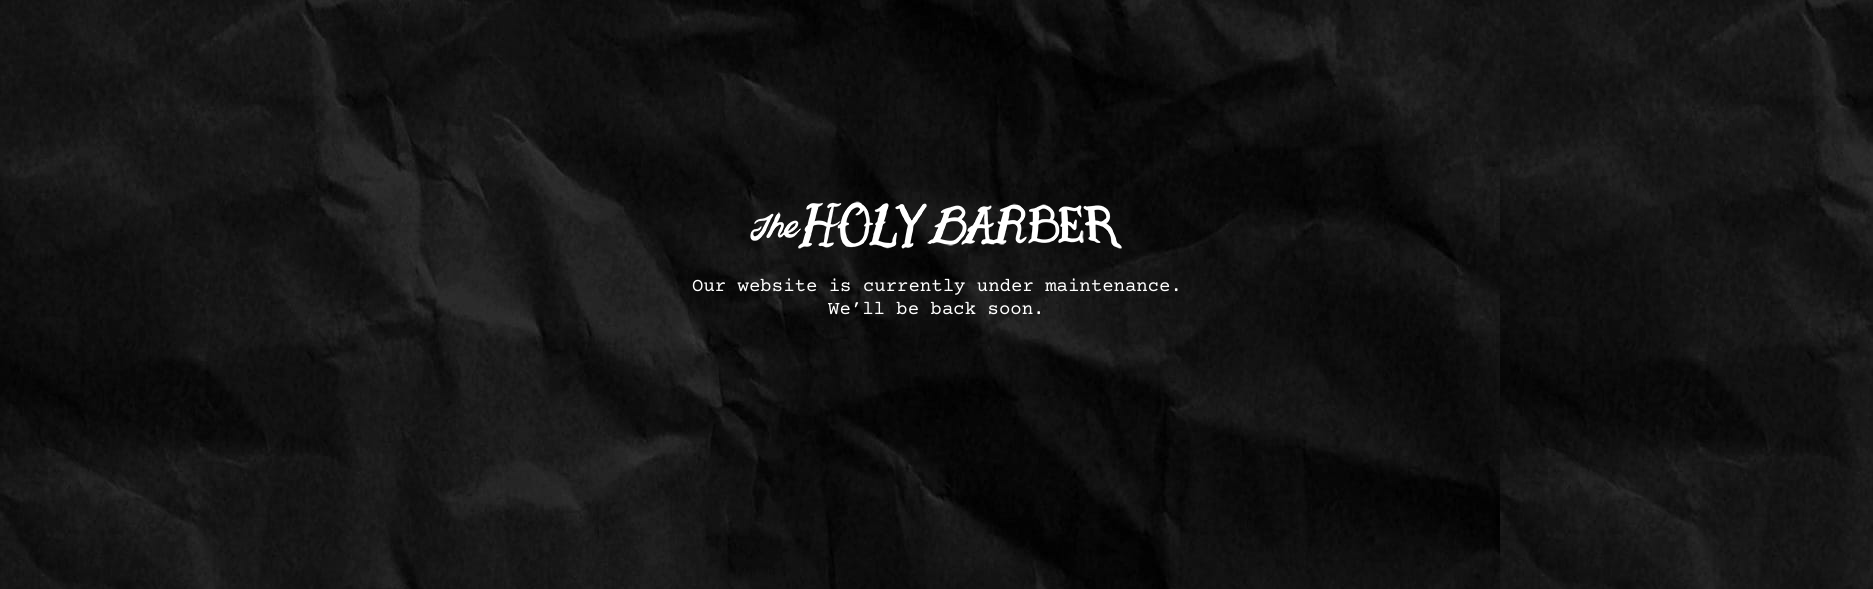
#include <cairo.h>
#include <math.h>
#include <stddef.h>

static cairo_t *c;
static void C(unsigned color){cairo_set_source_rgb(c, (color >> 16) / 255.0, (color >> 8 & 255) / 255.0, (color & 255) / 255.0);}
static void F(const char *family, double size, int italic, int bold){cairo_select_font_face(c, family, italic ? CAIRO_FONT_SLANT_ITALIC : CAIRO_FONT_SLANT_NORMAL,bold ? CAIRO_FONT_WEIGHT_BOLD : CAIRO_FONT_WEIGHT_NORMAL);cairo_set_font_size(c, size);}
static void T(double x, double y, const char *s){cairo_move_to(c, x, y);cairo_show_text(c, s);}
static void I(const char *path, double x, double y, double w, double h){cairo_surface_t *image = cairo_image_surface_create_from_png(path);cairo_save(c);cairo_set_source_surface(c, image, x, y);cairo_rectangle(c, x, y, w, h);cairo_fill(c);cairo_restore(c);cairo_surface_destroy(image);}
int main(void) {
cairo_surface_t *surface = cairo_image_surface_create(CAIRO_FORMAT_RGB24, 1873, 589);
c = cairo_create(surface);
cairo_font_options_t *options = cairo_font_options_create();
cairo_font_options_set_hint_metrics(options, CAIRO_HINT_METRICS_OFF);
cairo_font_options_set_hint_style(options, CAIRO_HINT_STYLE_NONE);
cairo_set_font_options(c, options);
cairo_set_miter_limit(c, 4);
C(0xffffff);
cairo_paint(c);
I("1.png",0,0,1873,589);
I("2.png",750,201,372,48);
F("Courier Prime",19,0,0);
C(0xffffff);
T(692,291,"Our website is currently under maintenance.");
T(828,314,"We’ll be back soon.");
cairo_surface_write_to_png(surface, "o.png");
cairo_font_options_destroy(options);
cairo_destroy(c);
cairo_surface_destroy(surface);
return 0;
}
